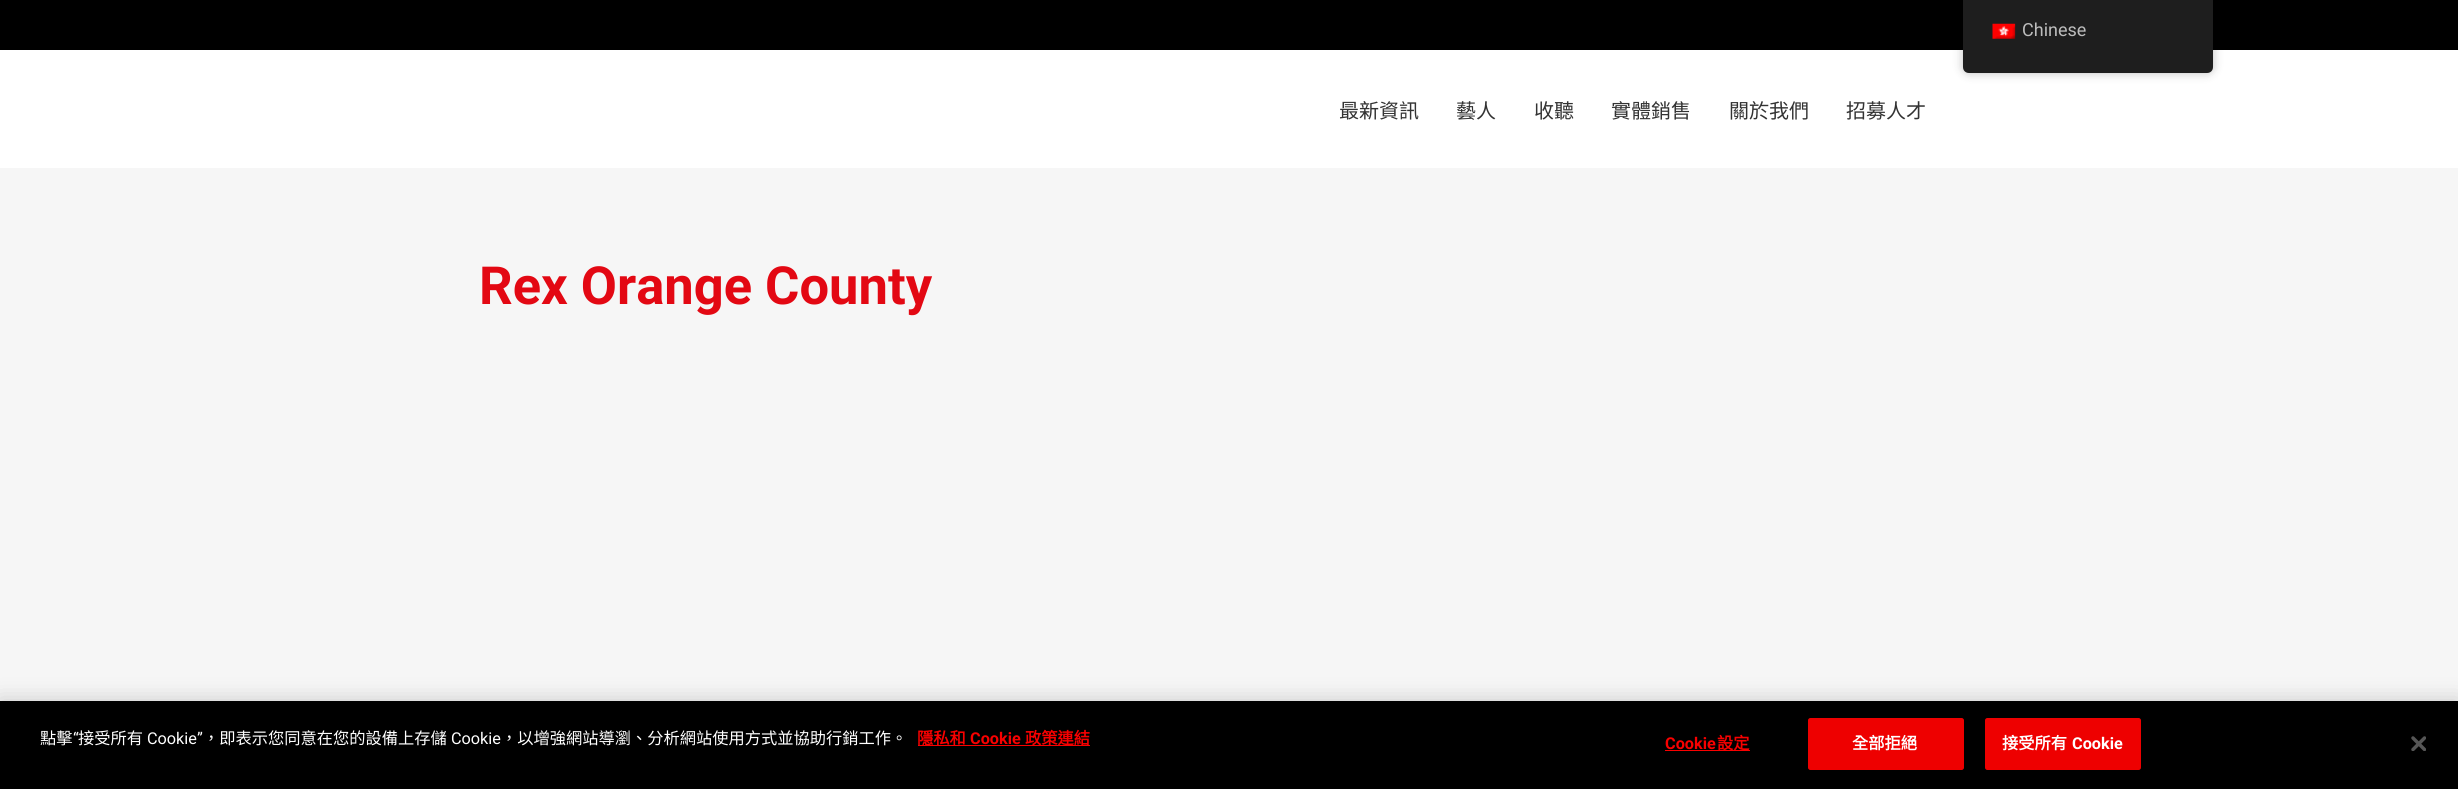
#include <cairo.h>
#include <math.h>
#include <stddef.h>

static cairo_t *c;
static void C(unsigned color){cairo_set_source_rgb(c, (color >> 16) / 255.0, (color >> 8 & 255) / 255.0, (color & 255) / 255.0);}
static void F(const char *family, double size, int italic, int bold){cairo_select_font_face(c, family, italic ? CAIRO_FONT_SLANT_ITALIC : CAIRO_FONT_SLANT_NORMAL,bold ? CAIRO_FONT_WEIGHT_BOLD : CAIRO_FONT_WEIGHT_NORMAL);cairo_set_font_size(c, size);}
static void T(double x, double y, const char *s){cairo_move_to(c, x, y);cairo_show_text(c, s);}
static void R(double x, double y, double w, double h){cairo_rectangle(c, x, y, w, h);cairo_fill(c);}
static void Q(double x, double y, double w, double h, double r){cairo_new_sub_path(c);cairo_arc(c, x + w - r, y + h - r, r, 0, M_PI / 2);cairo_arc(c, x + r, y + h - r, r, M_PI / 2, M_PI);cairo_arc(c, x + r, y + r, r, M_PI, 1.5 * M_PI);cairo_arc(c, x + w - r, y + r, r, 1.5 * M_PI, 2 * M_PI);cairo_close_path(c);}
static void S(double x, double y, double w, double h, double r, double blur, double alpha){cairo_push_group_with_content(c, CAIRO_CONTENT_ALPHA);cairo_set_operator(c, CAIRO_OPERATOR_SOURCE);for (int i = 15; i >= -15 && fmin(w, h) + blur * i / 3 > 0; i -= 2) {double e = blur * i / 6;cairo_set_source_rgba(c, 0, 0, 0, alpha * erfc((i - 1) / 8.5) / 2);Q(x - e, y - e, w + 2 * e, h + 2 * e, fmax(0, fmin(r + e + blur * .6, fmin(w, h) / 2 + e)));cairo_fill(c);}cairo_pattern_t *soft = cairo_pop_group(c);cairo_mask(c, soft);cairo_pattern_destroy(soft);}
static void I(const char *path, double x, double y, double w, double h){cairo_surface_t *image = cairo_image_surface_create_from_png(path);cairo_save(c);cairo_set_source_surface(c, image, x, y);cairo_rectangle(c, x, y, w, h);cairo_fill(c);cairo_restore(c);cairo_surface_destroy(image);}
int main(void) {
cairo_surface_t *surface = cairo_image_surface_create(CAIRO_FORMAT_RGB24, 2458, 789);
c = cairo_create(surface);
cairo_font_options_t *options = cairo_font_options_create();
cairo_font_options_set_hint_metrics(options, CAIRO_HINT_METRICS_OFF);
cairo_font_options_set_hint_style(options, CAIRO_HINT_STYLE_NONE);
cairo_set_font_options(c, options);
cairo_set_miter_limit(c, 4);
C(0xf6f6f6);
cairo_paint(c);
C(0x000000);
R(0,0,2458,50);
C(0xffffff);
R(0,50,2458,118);
C(0x000000);
S(1963,0,250,73,6,5,.25);
C(0x1e1e1e);
cairo_new_path(c);
cairo_move_to(c,1963,0);
cairo_line_to(c,2213,0);
cairo_line_to(c,2213,67);
cairo_curve_to(c,2213,70.5,2210.5,73,2207,73);
cairo_line_to(c,1969,73);
cairo_curve_to(c,1965.5,73,1963,70.5,1963,67);
cairo_close_path(c);
cairo_fill(c);
I("1.png",1992,23,24,16);
F("Roboto",18,0,0);
C(0xbdbdbd);
T(2022,36,"Chinese");
F("Noto Sans CJK HK",20,0,0);
C(0x333333);
T(1339,118,"最新資訊");
T(1456,118,"藝人");
T(1534,118,"收聽");
T(1611,118,"實體銷售");
T(1729,118,"關於我們");
T(1846,118,"招募人才");
F("Roboto",52.5,0,1);
C(0xe30813);
T(479,304,"Rex Orange County");
C(0x000000);
S(0,701,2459,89,0,11,.2);
C(0x000000);
R(0,701,2458,88);
F("Noto Sans CJK HK",16.25,0,0);
C(0xffffff);
T(40,744,"點擊");
F("Roboto",16.25,0,0);
T(73,744,"“");
F("Noto Sans CJK HK",16.25,0,0);
T(78,744,"接受所有");
F("Roboto",16.25,0,0);
T(147,744,"Cookie”");
F("Noto Sans CJK HK",16.25,0,0);
T(203,744,"，即表示您同意在您的設備上存儲");
F("Roboto",16.25,0,0);
T(451,744,"Cookie");
F("Noto Sans CJK HK",16.25,0,0);
T(501,744,"，以增強網站導瀏、分析網站使用方式並協助行銷工作。");
C(0xf90000);
R(918,745,172,1);
F("Noto Sans CJK HK",16.25,0,1);
T(917,744,"隱私和");
F("Roboto",16.25,0,1);
T(970,744,"Cookie");
F("Noto Sans CJK HK",16.25,0,1);
T(1025,744,"政策連結");
F("Roboto",16.25,0,1);
T(1665,749,"Cookie");
R(1665,750,85,1);
F("Noto Sans CJK HK",16.25,0,1);
T(1717,749,"設定");
C(0xee0000);
Q(1808.5,718.5,155,51,2);
cairo_fill_preserve(c);
cairo_set_line_width(c,1);
cairo_stroke(c);
C(0xffffff);
T(1852,749,"全部拒絕");
C(0xee0000);
Q(1985.5,718.5,155,51,2);
cairo_fill_preserve(c);
cairo_stroke(c);
C(0xffffff);
T(2002,749,"接受所有");
F("Roboto",16.25,0,1);
T(2072,749,"Cookie");
I("2.png",2411,736,15,15);
cairo_surface_write_to_png(surface, "o.png");
cairo_font_options_destroy(options);
cairo_destroy(c);
cairo_surface_destroy(surface);
return 0;
}
